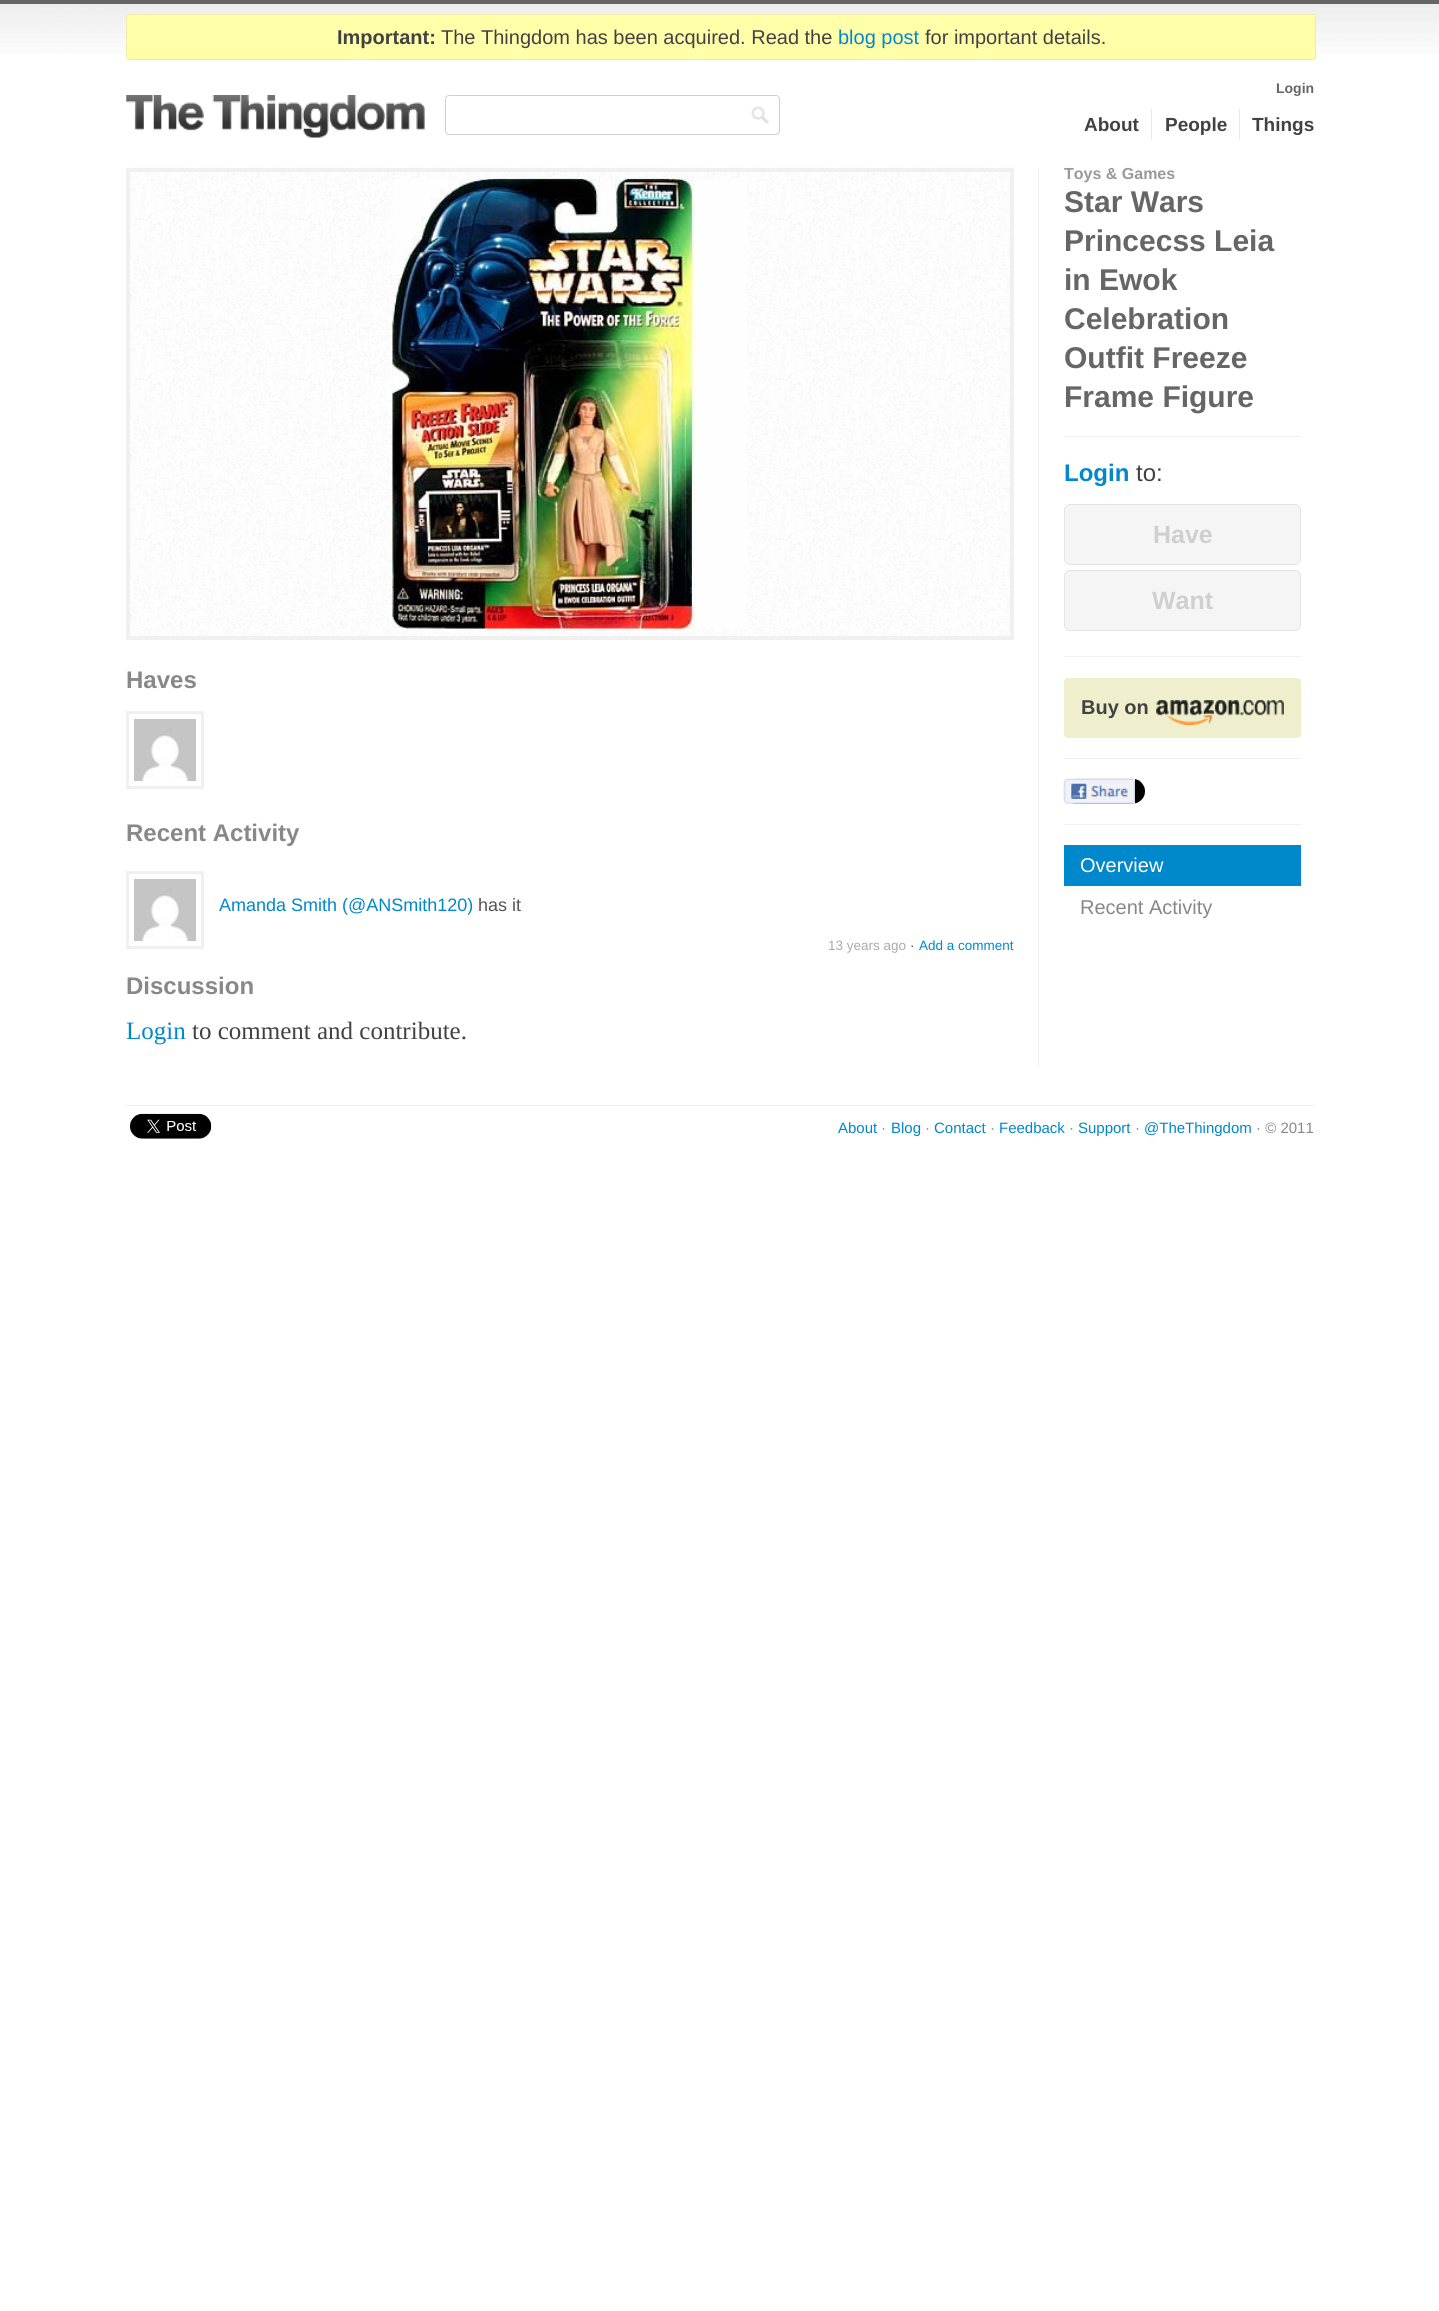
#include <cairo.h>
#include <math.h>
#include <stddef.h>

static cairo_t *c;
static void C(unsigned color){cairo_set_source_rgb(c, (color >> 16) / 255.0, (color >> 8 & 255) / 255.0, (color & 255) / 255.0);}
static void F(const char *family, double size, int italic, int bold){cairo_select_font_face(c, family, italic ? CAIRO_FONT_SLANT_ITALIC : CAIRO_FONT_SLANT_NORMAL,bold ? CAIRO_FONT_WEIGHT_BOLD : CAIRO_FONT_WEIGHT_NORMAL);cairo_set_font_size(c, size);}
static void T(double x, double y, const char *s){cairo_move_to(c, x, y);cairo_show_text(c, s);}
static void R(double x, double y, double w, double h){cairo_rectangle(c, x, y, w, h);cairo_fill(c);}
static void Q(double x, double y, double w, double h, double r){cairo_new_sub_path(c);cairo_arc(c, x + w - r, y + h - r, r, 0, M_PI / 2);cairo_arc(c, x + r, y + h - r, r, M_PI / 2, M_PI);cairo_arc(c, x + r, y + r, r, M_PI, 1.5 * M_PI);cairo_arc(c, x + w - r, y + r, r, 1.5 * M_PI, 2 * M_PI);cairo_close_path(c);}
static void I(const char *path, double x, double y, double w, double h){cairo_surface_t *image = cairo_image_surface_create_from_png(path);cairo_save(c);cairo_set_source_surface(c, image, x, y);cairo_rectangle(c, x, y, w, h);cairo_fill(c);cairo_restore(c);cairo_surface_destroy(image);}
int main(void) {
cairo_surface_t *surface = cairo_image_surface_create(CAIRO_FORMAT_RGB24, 1439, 2311);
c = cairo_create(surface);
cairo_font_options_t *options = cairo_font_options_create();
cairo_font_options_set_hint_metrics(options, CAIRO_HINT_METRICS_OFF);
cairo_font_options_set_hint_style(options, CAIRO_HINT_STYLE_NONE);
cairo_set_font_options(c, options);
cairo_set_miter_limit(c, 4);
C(0xffffff);
cairo_paint(c);
I("1.png",0,4,1439,50);
C(0x666666);
R(0,0,1439,4);
C(0xffffaa);
Q(126.5,14.5,1189,45,2);
cairo_fill_preserve(c);
C(0xeeeeaa);
cairo_set_line_width(c,1);
cairo_stroke(c);
F("Liberation Sans",20,0,1);
C(0x424242);
T(337,44,"Important:");
F("Liberation Sans",20,0,0);
T(441,44,"The Thingdom has been acquired. Read the");
C(0x0088cc);
T(838,44,"blog post");
C(0x424242);
T(925,44,"for important details.");
F("Liberation Sans",14,0,1);
C(0x666666);
T(1276,93,"Login");
I("2.png",126,95,299,43);
Q(445.5,95.5,334,39,3.5);
C(0xcfcfd1);
cairo_stroke(c);
I("3.png",751,106,18,18);
F("Liberation Sans",19,0,1);
C(0x424242);
T(1084,131,"About");
C(0xe8e8e8);
R(1151,109,1,31);
C(0x424242);
T(1165,131,"People");
C(0xe8e8e8);
R(1239,109,1,31);
C(0x424242);
T(1252,131,"Things");
C(0xf0f0f0);
R(1038,168,1,897);
I("4.png",126,167,888,469);
cairo_rectangle(c,128,170,884,468);
cairo_set_line_width(c,4);
cairo_stroke(c);
I("5.png",392,178,355,451);
F("Liberation Sans",24,0,1);
C(0x888888);
T(126,688,"Haves");
cairo_rectangle(c,127.5,712.5,75,75);
C(0xf0f0f0);
cairo_set_line_width(c,3);
cairo_stroke(c);
I("6.png",133,719,63,63);
C(0x888888);
T(126,841,"Recent Activity");
cairo_rectangle(c,127.5,872.5,75,75);
C(0xf0f0f0);
cairo_stroke(c);
I("6.png",133,879,63,63);
F("Liberation Sans",18,0,0);
C(0x0088cc);
T(219,911,"Amanda Smith (@ANSmith120)");
C(0x555555);
T(478,911,"has it");
F("Liberation Sans",13.5,0,0);
C(0xaaaaaa);
T(828,950,"13 years ago");
C(0x424242);
T(910,950,"·");
C(0x0088cc);
T(919,950,"Add a comment");
F("Liberation Sans",24,0,1);
C(0x888888);
T(126,994,"Discussion");
F("Liberation Serif",25,0,0);
C(0x0088cc);
T(126,1039,"Login");
C(0x424242);
T(192,1039,"to comment and contribute.");
F("Liberation Sans",16,0,1);
C(0x999999);
T(1064,179,"Toys & Games");
F("Liberation Sans",30,0,1);
C(0x666666);
T(1064,212,"Star Wars");
T(1064,251,"Princecss Leia");
T(1064,290,"in Ewok");
T(1064,329,"Celebration");
T(1064,368,"Outfit Freeze");
T(1064,407,"Frame Figure");
C(0xf0f0f0);
R(1064,436,237,1);
F("Liberation Sans",24,0,1);
C(0x0088cc);
T(1064,481,"Login");
F("Liberation Sans",24,0,0);
C(0x424242);
T(1136,481,"to:");
C(0xf5f5f5);
Q(1064.5,504.5,236,60,5.5);
cairo_fill_preserve(c);
C(0xe4e4e4);
cairo_set_line_width(c,1);
cairo_stroke(c);
F("Liberation Sans",25,0,1);
C(0xcfcfcf);
T(1153,543,"Have");
C(0xf5f5f5);
Q(1064.5,570.5,236,60,5.5);
cairo_fill_preserve(c);
C(0xe4e4e4);
cairo_stroke(c);
C(0xcfcfcf);
T(1152,609,"Want");
C(0xf0f0f0);
R(1064,656,237,1);
C(0xefefcd);
Q(1064,678,237,60,4);
cairo_fill(c);
F("Liberation Sans",20,0,1);
C(0x424242);
T(1081,714,"Buy on");
I("7.png",1156,700,128,25);
C(0xf0f0f0);
R(1064,758,237,1);
I("8.png",1063,778,82,26);
I("9.png",1063,778,72,26);
R(1064,824,237,1);
C(0x0088cc);
R(1064,845,237,41);
F("Liberation Sans",20,0,0);
C(0xffffff);
T(1080,872,"Overview");
C(0x888888);
T(1080,914,"Recent Activity");
C(0xeeeeee);
R(126,1105,1188,1);
I("10.png",130,1113,82,26);
F("Liberation Sans",15,0,0);
C(0x0088cc);
T(838,1133,"About");
C(0x888888);
T(881,1133,"·");
C(0x0088cc);
T(891,1133,"Blog");
C(0x888888);
T(925,1133,"·");
C(0x0088cc);
T(934,1133,"Contact");
C(0x888888);
T(990,1133,"·");
C(0x0088cc);
T(999,1133,"Feedback");
C(0x888888);
T(1069,1133,"·");
C(0x0088cc);
T(1078,1133,"Support");
C(0x888888);
T(1135,1133,"·");
C(0x0088cc);
T(1144,1133,"@TheThingdom");
C(0x888888);
T(1256,1133,"· © 2011");
cairo_surface_write_to_png(surface, "o.png");
cairo_font_options_destroy(options);
cairo_destroy(c);
cairo_surface_destroy(surface);
return 0;
}
